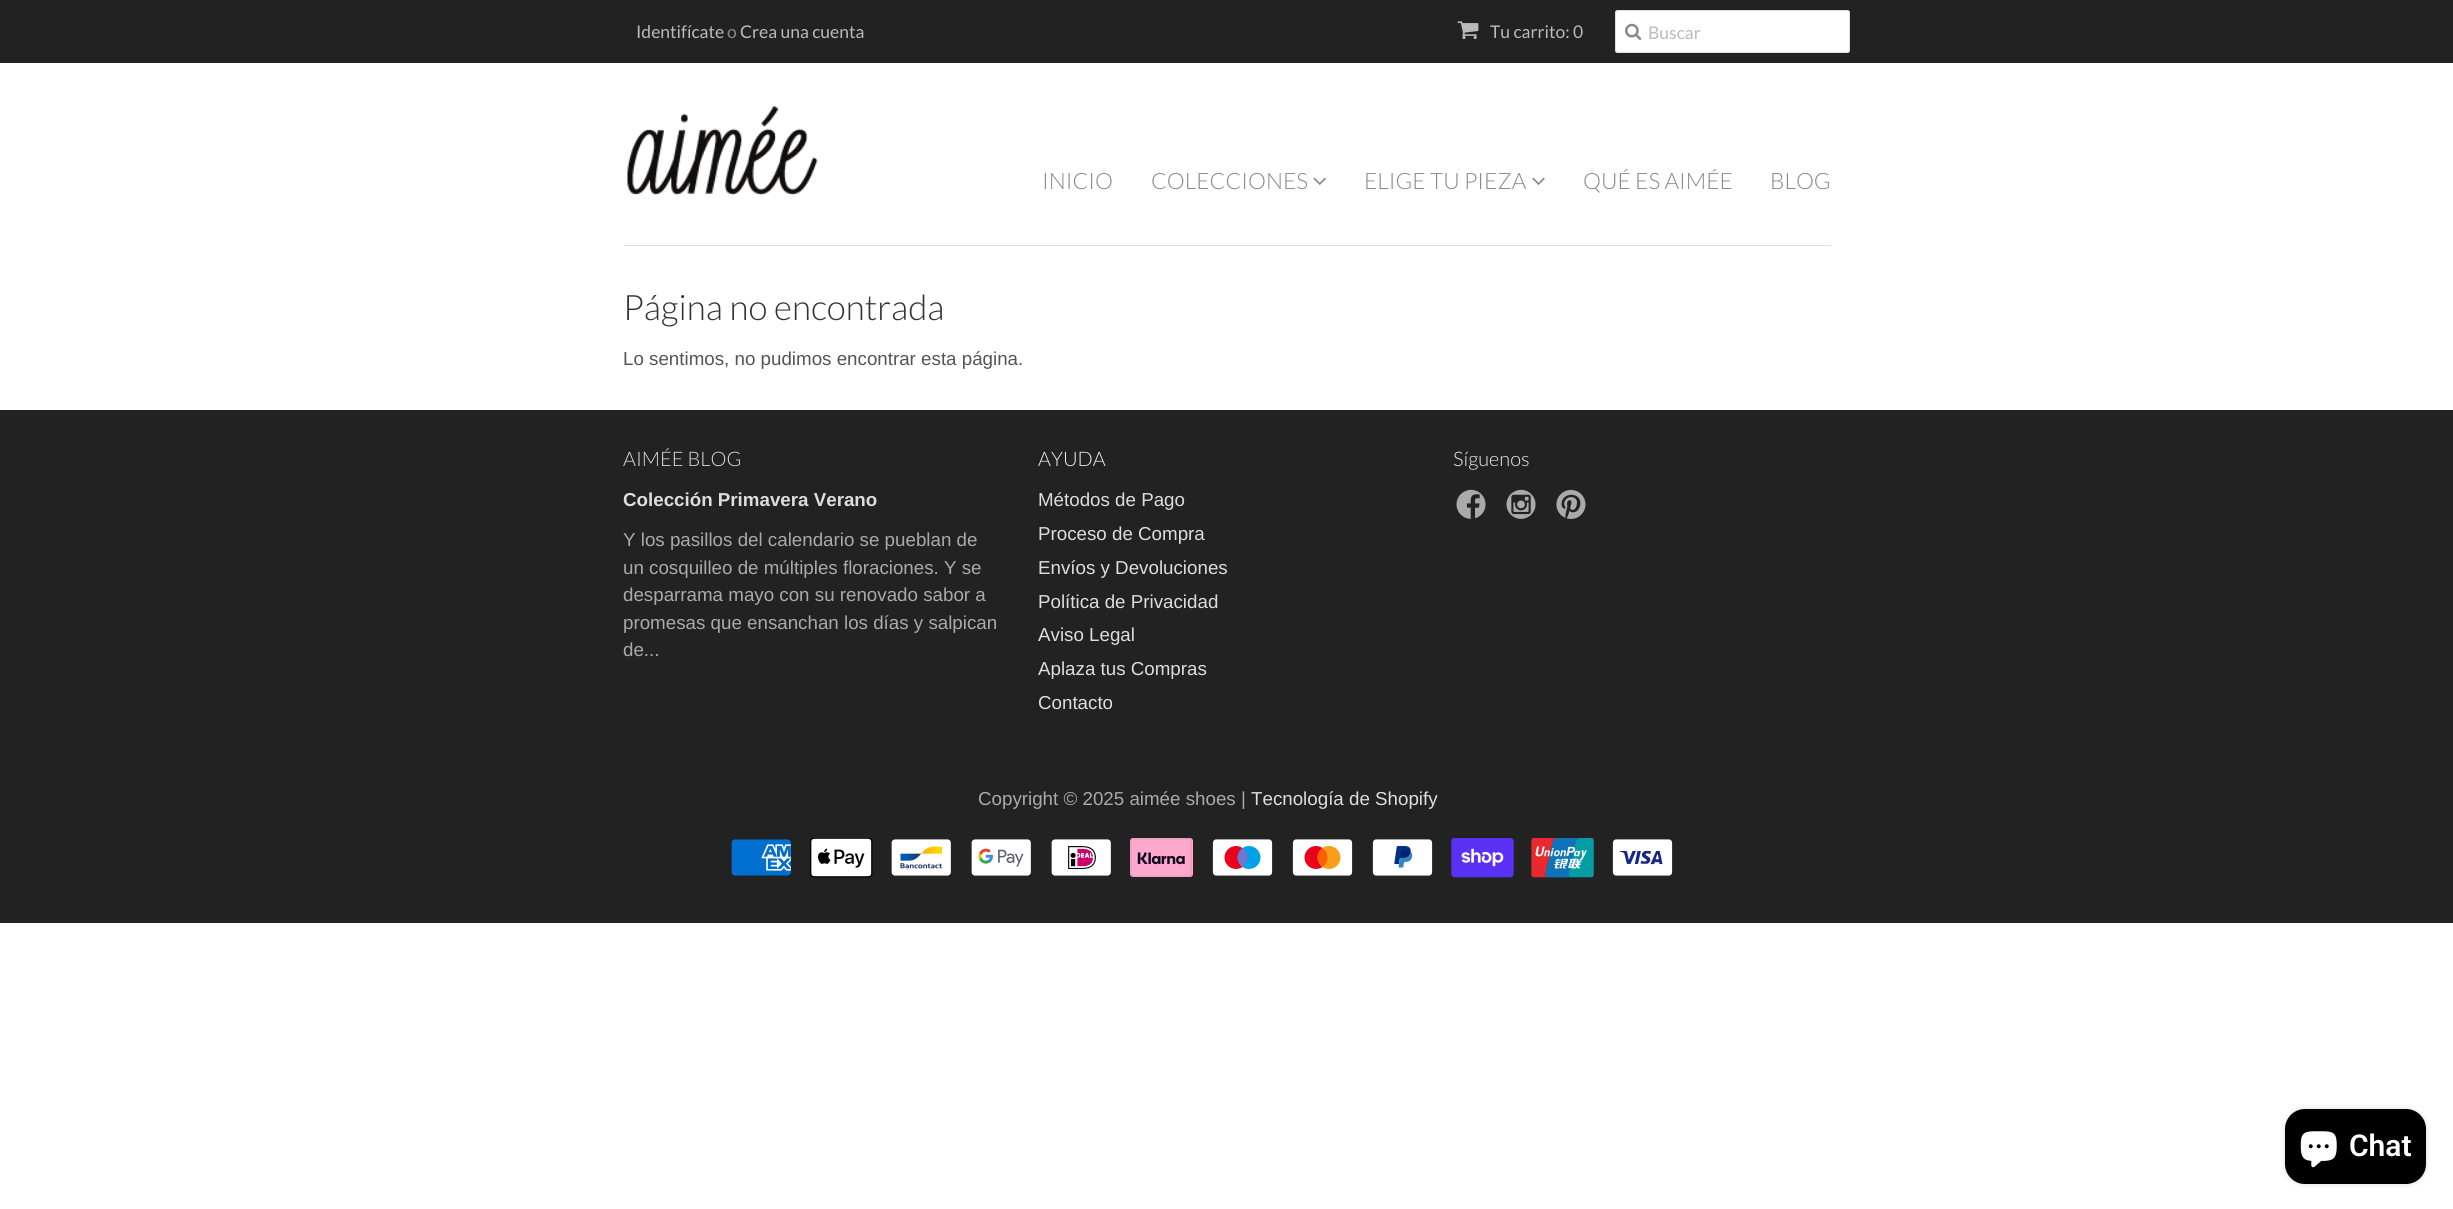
#include <cairo.h>
#include <math.h>
#include <stddef.h>

static cairo_t *c;
static void C(unsigned color){cairo_set_source_rgb(c, (color >> 16) / 255.0, (color >> 8 & 255) / 255.0, (color & 255) / 255.0);}
static void F(const char *family, double size, int italic, int bold){cairo_select_font_face(c, family, italic ? CAIRO_FONT_SLANT_ITALIC : CAIRO_FONT_SLANT_NORMAL,bold ? CAIRO_FONT_WEIGHT_BOLD : CAIRO_FONT_WEIGHT_NORMAL);cairo_set_font_size(c, size);}
static void T(double x, double y, const char *s){cairo_move_to(c, x, y);cairo_show_text(c, s);}
static void R(double x, double y, double w, double h){cairo_rectangle(c, x, y, w, h);cairo_fill(c);}
static void Q(double x, double y, double w, double h, double r){cairo_new_sub_path(c);cairo_arc(c, x + w - r, y + h - r, r, 0, M_PI / 2);cairo_arc(c, x + r, y + h - r, r, M_PI / 2, M_PI);cairo_arc(c, x + r, y + r, r, M_PI, 1.5 * M_PI);cairo_arc(c, x + w - r, y + r, r, 1.5 * M_PI, 2 * M_PI);cairo_close_path(c);}
static void S(double x, double y, double w, double h, double r, double blur, double alpha){cairo_push_group_with_content(c, CAIRO_CONTENT_ALPHA);cairo_set_operator(c, CAIRO_OPERATOR_SOURCE);for (int i = 15; i >= -15 && fmin(w, h) + blur * i / 3 > 0; i -= 2) {double e = blur * i / 6;cairo_set_source_rgba(c, 0, 0, 0, alpha * erfc((i - 1) / 8.5) / 2);Q(x - e, y - e, w + 2 * e, h + 2 * e, fmax(0, fmin(r + e + blur * .6, fmin(w, h) / 2 + e)));cairo_fill(c);}cairo_pattern_t *soft = cairo_pop_group(c);cairo_mask(c, soft);cairo_pattern_destroy(soft);}
static void I(const char *path, double x, double y, double w, double h){cairo_surface_t *image = cairo_image_surface_create_from_png(path);cairo_save(c);cairo_set_source_surface(c, image, x, y);cairo_rectangle(c, x, y, w, h);cairo_fill(c);cairo_restore(c);cairo_surface_destroy(image);}
int main(void) {
cairo_surface_t *surface = cairo_image_surface_create(CAIRO_FORMAT_RGB24, 2453, 1209);
c = cairo_create(surface);
cairo_font_options_t *options = cairo_font_options_create();
cairo_font_options_set_hint_metrics(options, CAIRO_HINT_METRICS_OFF);
cairo_font_options_set_hint_style(options, CAIRO_HINT_STYLE_NONE);
cairo_set_font_options(c, options);
cairo_set_miter_limit(c, 4);
C(0xffffff);
cairo_paint(c);
C(0x222222);
R(0,0,2453,63);
F("Lato",17.5,0,0);
C(0xbbbbbb);
T(636,38,"Identifícate");
C(0x888888);
T(727,38,"o");
C(0xbbbbbb);
T(740,38,"Crea una cuenta");
I("1.png",1457,21,22,19);
T(1490,38,"Tu carrito: 0");
C(0xffffff);
Q(1615.5,10.5,234,42,2);
cairo_fill_preserve(c);
C(0xdddddd);
cairo_set_line_width(c,1);
cairo_stroke(c);
I("2.png",1625,23,17,17);
C(0xbbbbbb);
T(1648,39,"Buscar");
C(0xdddddd);
R(624,245,1207,1);
I("3.png",627,106,191,90);
F("Lato Light",22.5,0,0);
C(0x888888);
T(1042,189,"INICIO");
T(1151,189,"COLECCIONES");
I("4.png",1313,177,13,8);
T(1364,189,"ELIGE TU PIEZA");
I("5.png",1532,177,13,8);
T(1583,189,"QUÉ ES AIMÉE");
T(1770,189,"BLOG");
F("Lato Light",35,0,0);
C(0x333333);
T(623,320,"Página no encontrada");
F("Liberation Sans",18.75,0,0);
C(0x555555);
T(623,365,"Lo sentimos, no pudimos encontrar esta página.");
C(0x222222);
R(0,410,2453,513);
F("Lato Light",20,0,0);
C(0xdddddd);
T(623,466,"AIMÉE BLOG");
F("Liberation Sans",18.75,0,1);
T(623,506,"Colección Primavera Verano");
F("Liberation Sans",18.75,0,0);
C(0xaaaaaa);
T(623,546,"Y los pasillos del calendario se pueblan de");
T(623,574,"un cosquilleo de múltiples floraciones. Y se");
T(623,601,"desparrama mayo con su renovado sabor a");
T(623,629,"promesas que ensanchan los días y salpican");
T(623,656,"de...");
F("Lato Light",20,0,0);
C(0xeeeeee);
T(1038,466,"AYUDA");
F("Liberation Sans",18.75,0,0);
C(0xdddddd);
T(1038,506,"Métodos de Pago");
T(1038,540,"Proceso de Compra");
T(1038,574,"Envíos y Devoluciones");
T(1038,608,"Política de Privacidad");
T(1038,641,"Aviso Legal");
T(1038,675,"Aplaza tus Compras");
T(1038,709,"Contacto");
F("Lato Light",20,0,0);
C(0xeeeeee);
T(1453,466,"Síguenos");
I("6.png",1456,489,30,30);
I("7.png",1506,489,30,30);
I("8.png",1556,489,30,30);
F("Liberation Sans",18.75,0,0);
C(0xaaaaaa);
T(978,805,"Copyright © 2025 aimée shoes |");
C(0xdddddd);
T(1251,805,"Tecnología de Shopify");
I("9.png",731,839,60,37);
I("10.png",810,838,63,40);
I("11.png",891,839,60,37);
I("12.png",971,839,60,37);
I("13.png",1051,839,60,37);
I("14.png",1130,838,63,39);
I("15.png",1212,839,61,37);
I("16.png",1292,839,61,37);
I("17.png",1372,839,61,37);
I("18.png",1451,838,63,40);
I("19.png",1531,838,63,40);
I("20.png",1612,839,61,37);
C(0x000000);
S(2285,1109,141,75,20,3,.15);
C(0x000000);
Q(2285,1109,141,75,20);
cairo_fill(c);
I("21.png",2300,1131,37,37);
F("Roboto SemiBold",30,0,0);
C(0xffffff);
T(2349,1156,"Chat");
cairo_surface_write_to_png(surface, "o.png");
cairo_font_options_destroy(options);
cairo_destroy(c);
cairo_surface_destroy(surface);
return 0;
}
